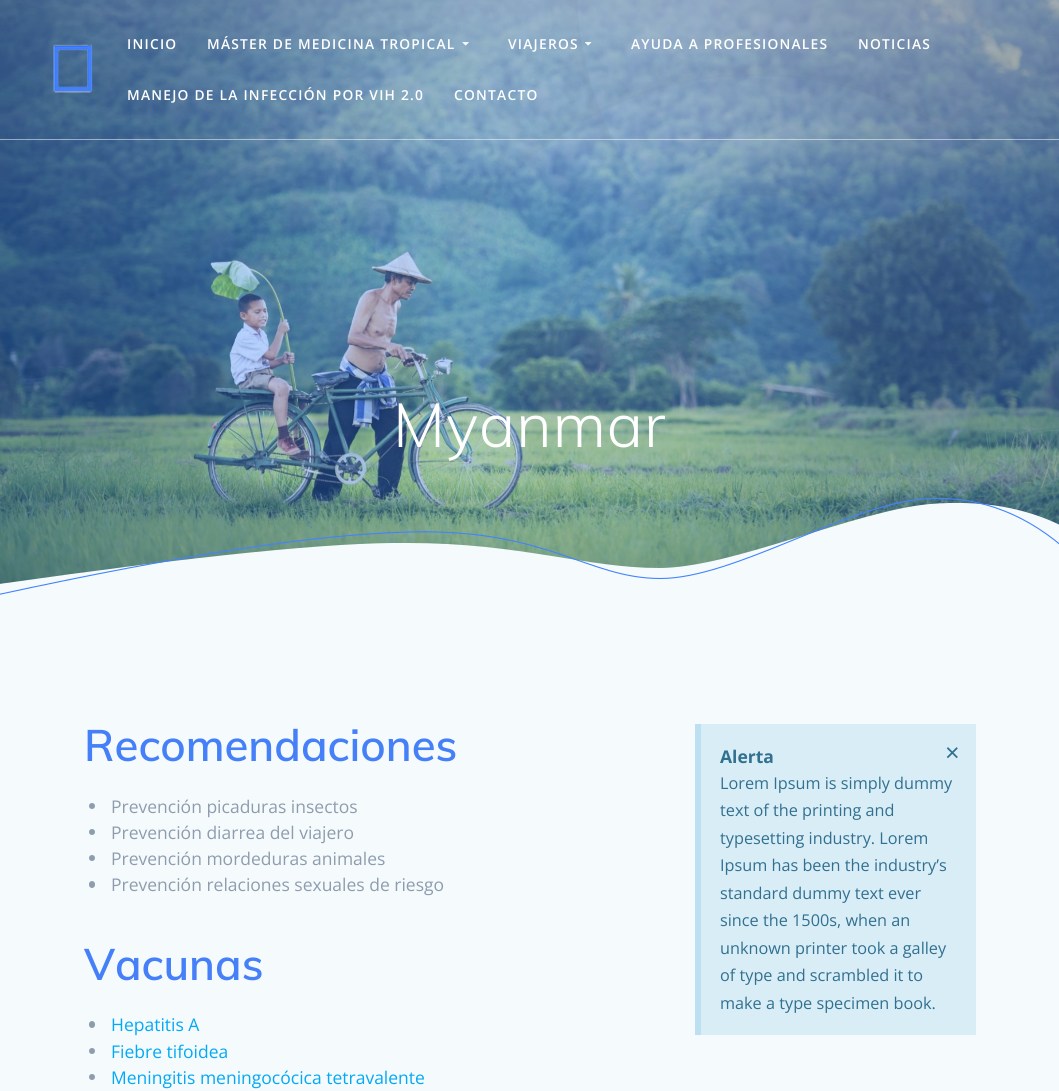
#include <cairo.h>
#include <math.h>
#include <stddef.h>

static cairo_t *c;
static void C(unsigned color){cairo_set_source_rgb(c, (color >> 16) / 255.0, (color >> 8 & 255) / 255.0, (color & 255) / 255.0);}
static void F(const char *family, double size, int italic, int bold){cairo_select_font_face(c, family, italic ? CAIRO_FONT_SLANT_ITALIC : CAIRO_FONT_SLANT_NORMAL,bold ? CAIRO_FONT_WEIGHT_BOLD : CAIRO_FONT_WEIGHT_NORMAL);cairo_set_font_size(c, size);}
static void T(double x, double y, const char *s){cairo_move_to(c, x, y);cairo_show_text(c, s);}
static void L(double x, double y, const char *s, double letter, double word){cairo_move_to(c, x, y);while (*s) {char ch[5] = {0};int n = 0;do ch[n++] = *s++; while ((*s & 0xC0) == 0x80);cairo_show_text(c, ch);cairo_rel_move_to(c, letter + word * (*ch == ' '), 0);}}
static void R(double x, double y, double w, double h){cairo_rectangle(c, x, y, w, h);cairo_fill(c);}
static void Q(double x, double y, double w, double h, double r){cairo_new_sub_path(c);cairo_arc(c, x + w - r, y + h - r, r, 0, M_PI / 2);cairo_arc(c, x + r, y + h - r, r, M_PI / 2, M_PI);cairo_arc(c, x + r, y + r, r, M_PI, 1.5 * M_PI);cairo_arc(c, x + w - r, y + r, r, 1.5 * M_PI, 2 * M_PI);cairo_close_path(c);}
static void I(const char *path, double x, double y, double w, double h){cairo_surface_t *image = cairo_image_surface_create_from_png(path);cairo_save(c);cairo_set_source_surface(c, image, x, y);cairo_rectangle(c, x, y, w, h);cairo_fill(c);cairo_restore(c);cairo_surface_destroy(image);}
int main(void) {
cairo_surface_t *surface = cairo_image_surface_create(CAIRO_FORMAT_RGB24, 1059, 1091);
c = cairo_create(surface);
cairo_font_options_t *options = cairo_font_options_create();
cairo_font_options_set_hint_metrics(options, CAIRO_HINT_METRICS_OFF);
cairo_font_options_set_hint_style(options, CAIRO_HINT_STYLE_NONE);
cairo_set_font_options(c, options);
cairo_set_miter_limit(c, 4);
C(0xf5fafd);
cairo_paint(c);
I("4.png",0,0,1059,584);
I("5.png",337,0,666,565);
cairo_set_source_rgba(c,1,1,1,0.5);
R(0,139,1059,1);
I("1.png",53,44,40,49);
F("Open Sans SemiBold",13.75,0,0);
C(0xffffff);
L(127,49,"INICIO",1.25,0);
L(207,49,"MÁSTER DE MEDICINA TROPICAL",1.25,0);
I("2.png",462,42,7,4);
L(508,49,"VIAJEROS",1.25,0);
I("3.png",585,42,7,4);
L(631,49,"AYUDA A PROFESIONALES",1.25,0);
L(858,49,"NOTICIAS",1.25,0);
L(127,100,"MANEJO DE LA INFECCIÓN POR VIH 2.0",1.25,0);
L(454,100,"CONTACTO",1.25,0);
F("Muli Light",61.25,0,0);
L(393,447,"Myanmar",1,0);
cairo_save(c);
cairo_rectangle(c,0,494,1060,115);
cairo_clip(c);
C(0xf5fafd);
cairo_new_path(c);
cairo_move_to(c,-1,584);
cairo_curve_to(c,196,556,333,542,408,543);
cairo_curve_to(c,521,543,586,568,659,568);
cairo_curve_to(c,732,568,854,511,930,504);
cairo_curve_to(c,980,500,1024,507,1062,526);
cairo_line_to(c,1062,609);
cairo_line_to(c,-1,610);
cairo_close_path(c);
cairo_fill(c);
cairo_restore(c);
cairo_new_path(c);
cairo_move_to(c,-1.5,594.5);
cairo_curve_to(c,181,555,318,534,410,532);
cairo_curve_to(c,548,528.5,587,578.5,660.5,578.5);
cairo_curve_to(c,733.5,578.5,846.5,505.5,922.5,499);
cairo_curve_to(c,973,495,1020,510.5,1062.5,546.5);
C(0x4183fe);
cairo_set_line_width(c,1.1);
cairo_stroke(c);
F("Muli SemiBold",43.75,0,0);
C(0x4580f8);
T(84,761,"Recomendaciones");
C(0x8e9dae);
cairo_new_path(c);
cairo_arc(c,92,806,3,0,2 * M_PI);
cairo_fill(c);
F("Open Sans",17.5,0,0);
T(111,813,"Prevención picaduras insectos");
cairo_new_path(c);
cairo_arc(c,92,832,3,0,2 * M_PI);
cairo_fill(c);
T(111,839,"Prevención diarrea del viajero");
cairo_new_path(c);
cairo_arc(c,92,858,3,0,2 * M_PI);
cairo_fill(c);
T(111,865,"Prevención mordeduras animales");
Q(89,881,6,7,3);
cairo_fill(c);
T(111,891,"Prevención relaciones sexuales de riesgo");
F("Muli SemiBold",43.75,0,0);
C(0x4580f8);
T(84,980,"Vacunas");
C(0x8e9dae);
Q(89,1021,6,7,3);
cairo_fill(c);
F("Open Sans",17.5,0,0);
C(0x03a9f4);
T(111,1031,"Hepatitis A");
C(0x8e9dae);
cairo_new_path(c);
cairo_arc(c,92,1051,3,0,2 * M_PI);
cairo_fill(c);
C(0x03a9f4);
T(111,1058,"Fiebre tifoidea");
C(0x8e9dae);
cairo_new_path(c);
cairo_arc(c,92,1077,3,0,2 * M_PI);
cairo_fill(c);
C(0x03a9f4);
T(111,1084,"Meningitis meningocócica tetravalente");
C(0xd9edf7);
R(701,724,275,311);
C(0xbcdff1);
R(695,724,6,311);
F("Open Sans",17.5,0,1);
C(0x31708f);
T(720,763,"Alerta");
F("Liberation Sans",25,0,0);
T(945,761,"×");
F("Open Sans",16.25,0,0);
T(720,789,"Lorem Ipsum is simply dummy");
T(720,816,"text of the printing and");
T(720,844,"typesetting industry. Lorem");
T(720,871,"Ipsum has been the industry’s");
T(720,899,"standard dummy text ever");
T(720,926,"since the 1500s, when an");
T(720,954,"unknown printer took a galley");
T(720,981,"of type and scrambled it to");
T(720,1009,"make a type specimen book.");
cairo_surface_write_to_png(surface, "o.png");
cairo_font_options_destroy(options);
cairo_destroy(c);
cairo_surface_destroy(surface);
return 0;
}
